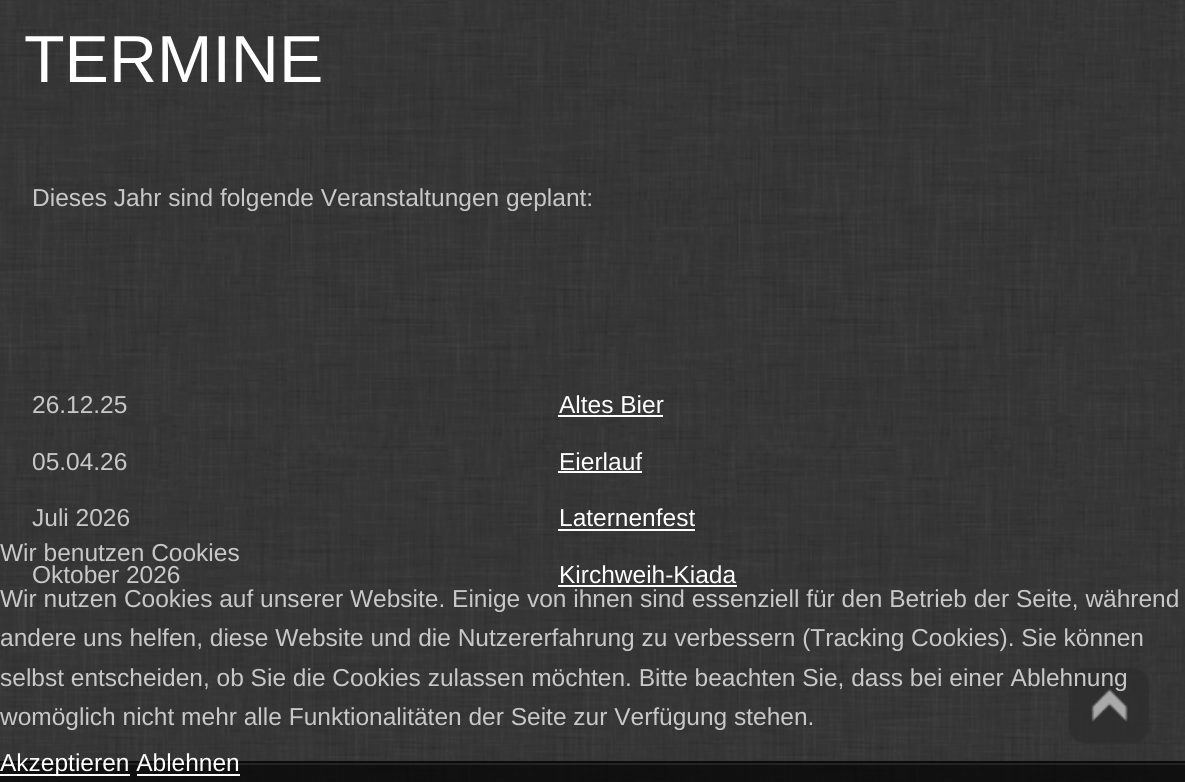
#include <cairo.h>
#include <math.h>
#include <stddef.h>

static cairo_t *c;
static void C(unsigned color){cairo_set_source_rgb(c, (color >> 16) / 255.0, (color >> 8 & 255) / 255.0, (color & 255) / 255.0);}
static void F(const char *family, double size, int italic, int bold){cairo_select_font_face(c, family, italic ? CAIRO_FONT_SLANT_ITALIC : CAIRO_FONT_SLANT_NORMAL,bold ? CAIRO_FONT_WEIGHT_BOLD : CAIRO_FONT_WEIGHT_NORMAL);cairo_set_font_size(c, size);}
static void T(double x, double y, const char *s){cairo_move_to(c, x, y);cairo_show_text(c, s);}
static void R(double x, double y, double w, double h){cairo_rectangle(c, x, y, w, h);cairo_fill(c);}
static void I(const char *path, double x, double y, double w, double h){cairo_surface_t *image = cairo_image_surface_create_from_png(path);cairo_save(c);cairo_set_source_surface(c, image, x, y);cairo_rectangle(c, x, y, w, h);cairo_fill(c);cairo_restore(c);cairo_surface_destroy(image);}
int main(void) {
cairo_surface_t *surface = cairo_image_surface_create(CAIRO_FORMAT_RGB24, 1185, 782);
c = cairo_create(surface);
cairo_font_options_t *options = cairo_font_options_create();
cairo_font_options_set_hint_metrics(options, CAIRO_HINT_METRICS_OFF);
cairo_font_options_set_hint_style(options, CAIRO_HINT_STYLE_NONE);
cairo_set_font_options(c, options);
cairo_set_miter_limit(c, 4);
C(0xffffff);
cairo_paint(c);
I("1.png",0,0,1185,782);
F("Liberation Sans",66.5,0,0);
C(0xffffff);
T(24,82,"TERMINE");
F("Liberation Sans",24.5,0,0);
C(0xc8c8c8);
T(32,206,"Dieses Jahr sind folgende Veranstaltungen geplant:");
T(32,413,"26.12.25");
C(0xffffff);
T(559,413,"Altes Bier");
R(558,415,105,2);
C(0xc8c8c8);
T(32,470,"05.04.26");
C(0xffffff);
T(559,470,"Eierlauf");
R(558,471,84,2);
C(0xc8c8c8);
T(32,526,"Juli 2026");
C(0xffffff);
T(559,526,"Laternenfest");
R(558,529,137,2);
C(0xc8c8c8);
T(32,583,"Oktober 2026");
C(0xffffff);
T(559,583,"Kirchweih-Kiada");
R(558,585,179,2);
C(0xc8c8c8);
T(0,561,"Wir benutzen Cookies");
T(0,607,"Wir nutzen Cookies auf unserer Website. Einige von ihnen sind essenziell für den Betrieb der Seite, während");
T(0,646,"andere uns helfen, diese Website und die Nutzererfahrung zu verbessern (Tracking Cookies). Sie können");
I("2.png",1069,667,80,77);
T(0,686,"selbst entscheiden, ob Sie die Cookies zulassen möchten. Bitte beachten Sie, dass bei einer Ablehnung");
T(0,725,"womöglich nicht mehr alle Funktionalitäten der Seite zur Verfügung stehen.");
cairo_set_source_rgba(c,0,0,0,0.7);
R(0,765,1185,17);
C(0xffffff);
R(0,774,130,2);
cairo_set_source_rgba(c,0,0,0,0.8);
cairo_new_path(c);
cairo_move_to(c,0,761);
cairo_line_to(c,0,765);
cairo_line_to(c,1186,765);
cairo_line_to(c,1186,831);
cairo_line_to(c,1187,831);
cairo_line_to(c,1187,761);
cairo_close_path(c);
cairo_fill(c);
C(0x232323);
cairo_new_path(c);
cairo_move_to(c,0,763);
cairo_line_to(c,0,765);
cairo_line_to(c,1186,765);
cairo_line_to(c,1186,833);
cairo_line_to(c,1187,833);
cairo_line_to(c,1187,763);
cairo_close_path(c);
cairo_fill(c);
C(0xffffff);
T(0,771,"Akzeptieren Ablehnen");
R(137,774,103,2);
cairo_surface_write_to_png(surface, "o.png");
cairo_font_options_destroy(options);
cairo_destroy(c);
cairo_surface_destroy(surface);
return 0;
}
